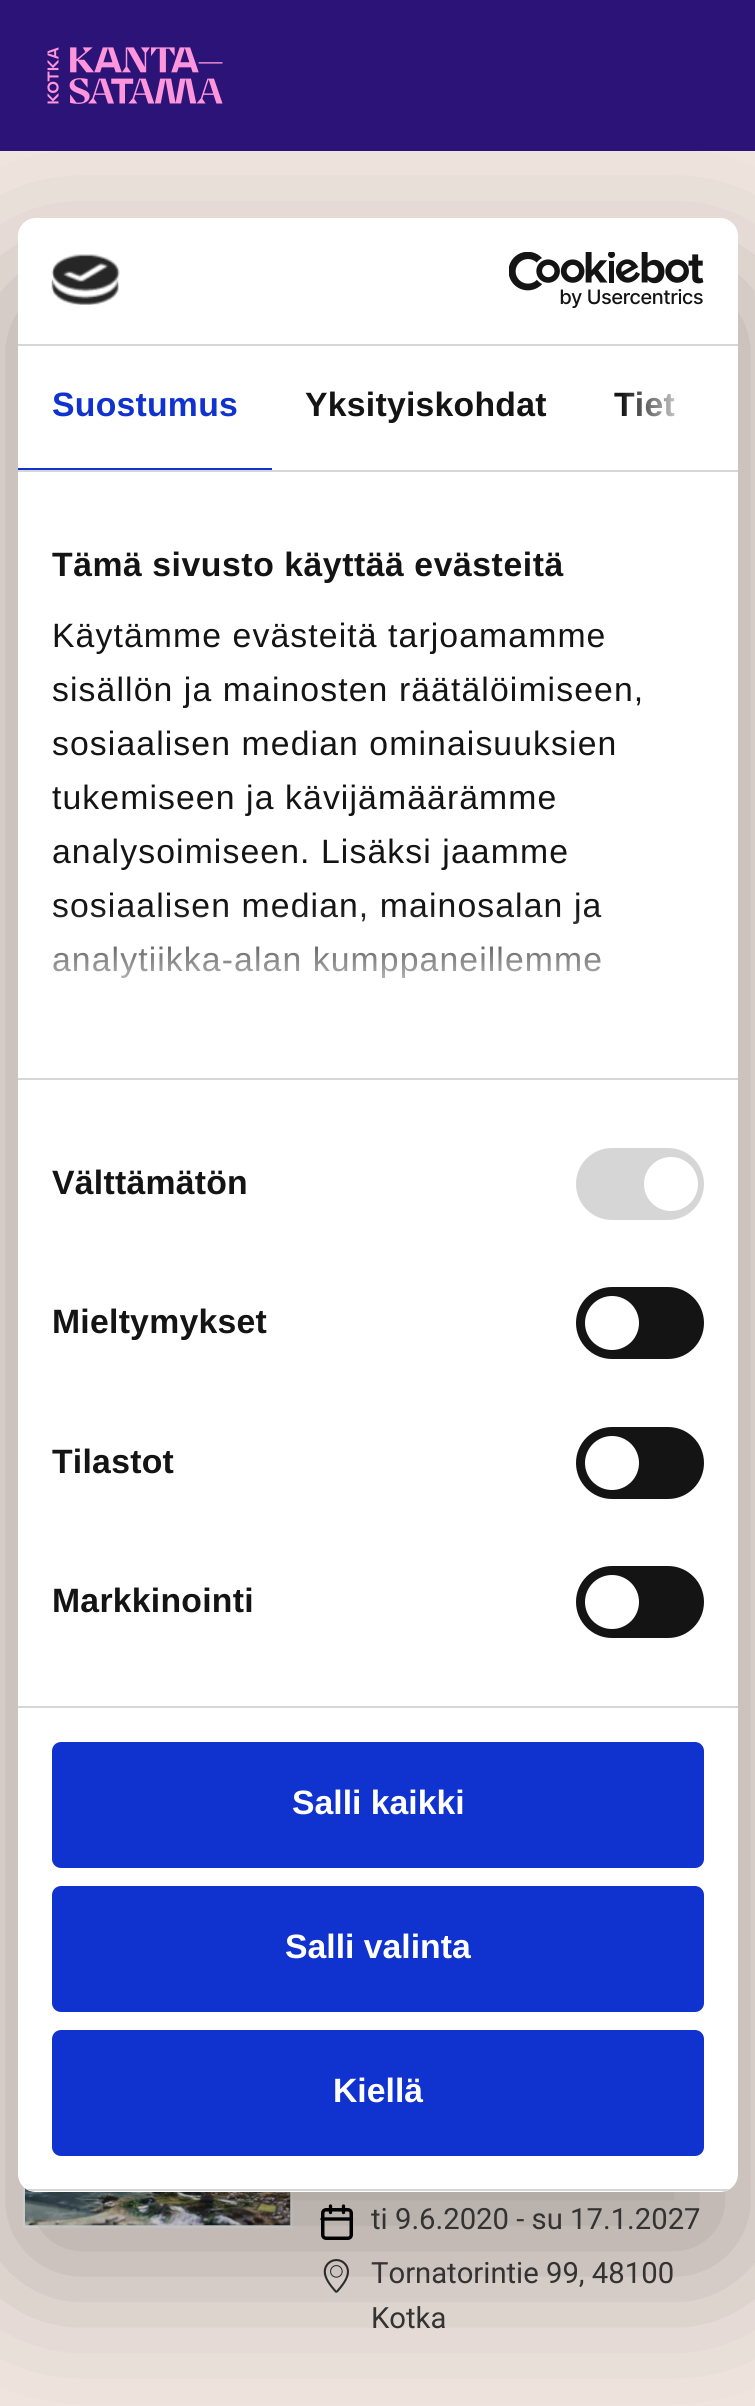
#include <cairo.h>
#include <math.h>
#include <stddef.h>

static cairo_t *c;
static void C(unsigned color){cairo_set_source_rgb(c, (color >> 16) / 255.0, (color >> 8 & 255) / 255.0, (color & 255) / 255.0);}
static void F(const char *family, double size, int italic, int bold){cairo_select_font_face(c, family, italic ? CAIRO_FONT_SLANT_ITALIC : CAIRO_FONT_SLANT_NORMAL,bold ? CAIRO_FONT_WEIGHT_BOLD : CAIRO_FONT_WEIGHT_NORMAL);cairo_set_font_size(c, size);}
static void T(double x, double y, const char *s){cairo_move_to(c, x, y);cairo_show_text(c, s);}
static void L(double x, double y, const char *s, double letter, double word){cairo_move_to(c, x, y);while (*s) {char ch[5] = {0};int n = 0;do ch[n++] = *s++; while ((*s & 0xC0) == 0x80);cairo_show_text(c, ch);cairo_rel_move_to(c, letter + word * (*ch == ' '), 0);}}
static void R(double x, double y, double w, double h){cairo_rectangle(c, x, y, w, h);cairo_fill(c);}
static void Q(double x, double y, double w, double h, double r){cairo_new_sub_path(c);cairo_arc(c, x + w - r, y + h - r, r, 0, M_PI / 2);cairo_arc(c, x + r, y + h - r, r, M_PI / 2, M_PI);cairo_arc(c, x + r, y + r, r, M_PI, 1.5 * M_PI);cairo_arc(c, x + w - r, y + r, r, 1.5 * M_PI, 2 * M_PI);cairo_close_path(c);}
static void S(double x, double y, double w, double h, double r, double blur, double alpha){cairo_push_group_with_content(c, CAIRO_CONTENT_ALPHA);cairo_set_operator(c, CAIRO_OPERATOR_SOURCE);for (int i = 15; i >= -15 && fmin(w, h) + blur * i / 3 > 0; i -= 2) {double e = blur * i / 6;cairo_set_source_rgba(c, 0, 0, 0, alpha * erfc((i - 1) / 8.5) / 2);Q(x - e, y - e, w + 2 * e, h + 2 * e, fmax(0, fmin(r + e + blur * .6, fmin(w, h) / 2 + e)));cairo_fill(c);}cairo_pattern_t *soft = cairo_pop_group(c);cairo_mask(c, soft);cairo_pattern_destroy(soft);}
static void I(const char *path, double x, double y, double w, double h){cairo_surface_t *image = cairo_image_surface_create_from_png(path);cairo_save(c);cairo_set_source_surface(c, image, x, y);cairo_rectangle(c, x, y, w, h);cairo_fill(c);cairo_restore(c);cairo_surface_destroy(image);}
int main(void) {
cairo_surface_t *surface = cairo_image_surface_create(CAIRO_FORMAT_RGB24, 755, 2406);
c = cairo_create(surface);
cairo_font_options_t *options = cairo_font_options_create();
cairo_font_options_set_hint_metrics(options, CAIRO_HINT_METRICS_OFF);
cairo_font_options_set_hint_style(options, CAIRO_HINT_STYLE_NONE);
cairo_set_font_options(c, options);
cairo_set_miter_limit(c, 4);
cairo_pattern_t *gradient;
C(0xf0e5df);
cairo_paint(c);
C(0x2b1377);
R(0,0,755,151);
I("1.png",47,47,176,57);
C(0xeeeeee);
R(25,2192,266,34);
I("4.png",25,2188,266,38);
cairo_rectangle(c,24,2076,268,151);
cairo_stroke(c);
Q(322.75,2209.75,28.5,28.5,3.25);
C(0x000000);
cairo_set_line_width(c,3.5);
cairo_stroke(c);
cairo_new_path(c);
cairo_move_to(c,343.5,2206);
cairo_line_to(c,343.5,2212.5);
cairo_move_to(c,330.5,2206);
cairo_line_to(c,330.5,2212.5);
cairo_move_to(c,322,2219);
cairo_line_to(c,351.5,2219);
cairo_set_line_width(c,3.3);
cairo_set_line_cap(c,CAIRO_LINE_CAP_ROUND);
cairo_set_line_join(c,CAIRO_LINE_JOIN_ROUND);
cairo_stroke(c);
I("5.png",323,2259,26,34);
C(0x000000);
S(18,290,720,1974,18,76.5,.3);
C(0xffffff);
Q(18,218,720,1974,18);
cairo_fill(c);
C(0xd6d6d6);
R(18,344,720,2);
I("2.png",51,254,69,51);
I("3.png",509,252,195,57);
R(18,470,720,2);
C(0x1032cf);
R(18,468,254,2);
F("Liberation Sans",33.75,0,1);
L(52,416,"Suostumus",.25,0);
C(0x141414);
L(305,416,"Yksityiskohdat",.25,0);
L(614,416,"Tiet",.25,0);
gradient = cairo_pattern_create_linear(738,407,621,407);
cairo_pattern_add_color_stop_rgba(gradient,0,1,1,1,1);
cairo_pattern_add_color_stop_rgba(gradient,.5,1,1,1,.8);
cairo_pattern_add_color_stop_rgba(gradient,1,1,1,1,0);
cairo_set_source(c,gradient);
cairo_pattern_destroy(gradient);
R(623,391,52,26);
C(0xd6d6d6);
R(18,1078,720,2);
C(0x141414);
L(52,576,"Tämä sivusto käyttää evästeitä",.55,0);
F("Liberation Sans",33.75,0,0);
L(52,647,"Käytämme evästeitä tarjoamamme",1.1,0);
L(52,701,"sisällön ja mainosten räätälöimiseen,",1.1,0);
L(52,755,"sosiaalisen median ominaisuuksien",1.1,0);
L(52,809,"tukemiseen ja kävijämäärämme",1.1,0);
L(52,863,"analysoimiseen. Lisäksi jaamme",1.1,0);
L(52,917,"sosiaalisen median, mainosalan ja",1.1,0);
L(52,971,"analytiikka-alan kumppaneillemme",1.1,0);
gradient = cairo_pattern_create_linear(363,1077,363,908);
cairo_pattern_add_color_stop_rgba(gradient,0,1,1,1,1);
cairo_pattern_add_color_stop_rgba(gradient,.5,1,1,1,.8);
cairo_pattern_add_color_stop_rgba(gradient,1,1,1,1,0);
cairo_set_source(c,gradient);
cairo_pattern_destroy(gradient);
R(53,910,549,68);
C(0xd6d6d6);
R(18,1706,720,2);
F("Liberation Sans",33.75,0,1);
C(0x141414);
L(52,1194,"Välttämätön",.25,0);
C(0xd6d6d6);
Q(576,1148,128,72,36);
cairo_fill(c);
C(0xffffff);
cairo_arc(c,671,1184,27,0,2 * M_PI);
cairo_fill(c);
C(0x141414);
L(52,1333,"Mieltymykset",.25,0);
Q(576,1287,128,72,36);
cairo_fill(c);
C(0xffffff);
cairo_arc(c,612,1323,27,0,2 * M_PI);
cairo_fill(c);
C(0x141414);
L(52,1473,"Tilastot",.25,0);
Q(576,1427,128,72,36);
cairo_fill(c);
C(0xffffff);
cairo_arc(c,612,1463,27,0,2 * M_PI);
cairo_fill(c);
C(0x141414);
L(52,1612,"Markkinointi",.25,0);
Q(576,1566,128,72,36);
cairo_fill(c);
C(0xffffff);
cairo_arc(c,612,1602,27,0,2 * M_PI);
cairo_fill(c);
cairo_save(c);
Q(18,218,720,1974,18);
cairo_clip(c);
C(0xd6d6d6);
R(18,2189,720,2);
cairo_restore(c);
C(0x1032cf);
Q(54.5,1744.5,647,121,6.5);
cairo_fill_preserve(c);
cairo_set_line_width(c,5);
cairo_set_line_cap(c,CAIRO_LINE_CAP_BUTT);
cairo_set_line_join(c,CAIRO_LINE_JOIN_MITER);
cairo_stroke(c);
C(0xffffff);
T(292,1814,"Salli kaikki");
C(0x1032cf);
Q(54.5,1888.5,647,121,6.5);
cairo_fill_preserve(c);
cairo_stroke(c);
C(0xffffff);
T(285,1958,"Salli valinta");
C(0x1032cf);
Q(54.5,2032.5,647,121,6.5);
cairo_fill_preserve(c);
cairo_stroke(c);
C(0xffffff);
T(333,2102,"Kiellä");
F("Roboto",29.25,0,0);
C(0x333333);
T(371,2229,"ti 9.6.2020 - su 17.1.2027");
T(371,2283,"Tornatorintie 99, 48100");
T(371,2328,"Kotka");
cairo_surface_write_to_png(surface, "o.png");
cairo_font_options_destroy(options);
cairo_destroy(c);
cairo_surface_destroy(surface);
return 0;
}
